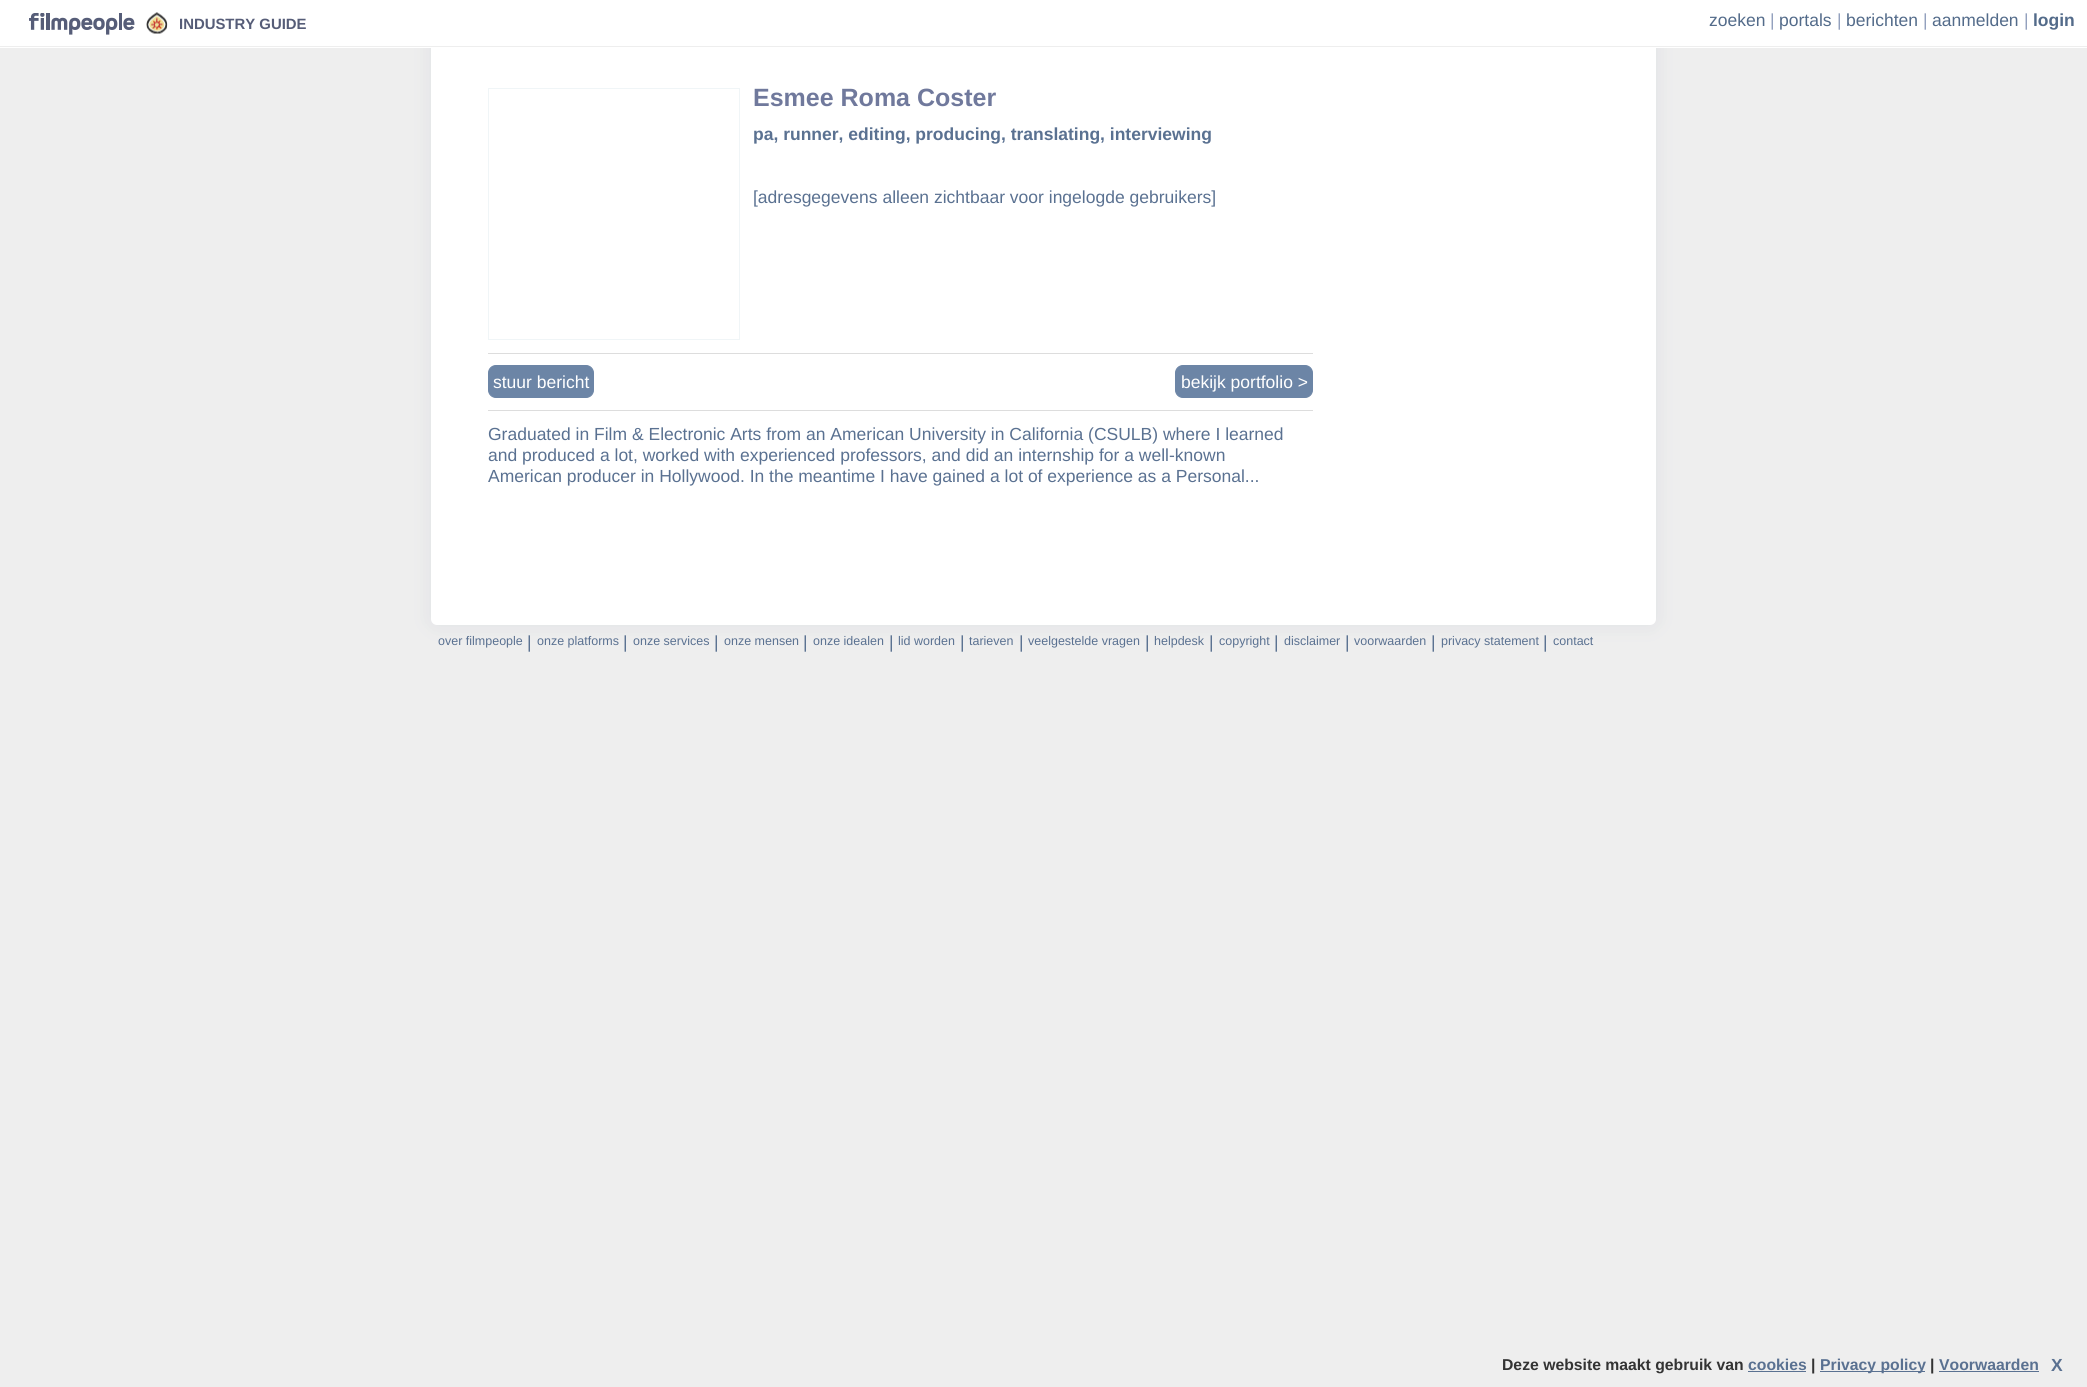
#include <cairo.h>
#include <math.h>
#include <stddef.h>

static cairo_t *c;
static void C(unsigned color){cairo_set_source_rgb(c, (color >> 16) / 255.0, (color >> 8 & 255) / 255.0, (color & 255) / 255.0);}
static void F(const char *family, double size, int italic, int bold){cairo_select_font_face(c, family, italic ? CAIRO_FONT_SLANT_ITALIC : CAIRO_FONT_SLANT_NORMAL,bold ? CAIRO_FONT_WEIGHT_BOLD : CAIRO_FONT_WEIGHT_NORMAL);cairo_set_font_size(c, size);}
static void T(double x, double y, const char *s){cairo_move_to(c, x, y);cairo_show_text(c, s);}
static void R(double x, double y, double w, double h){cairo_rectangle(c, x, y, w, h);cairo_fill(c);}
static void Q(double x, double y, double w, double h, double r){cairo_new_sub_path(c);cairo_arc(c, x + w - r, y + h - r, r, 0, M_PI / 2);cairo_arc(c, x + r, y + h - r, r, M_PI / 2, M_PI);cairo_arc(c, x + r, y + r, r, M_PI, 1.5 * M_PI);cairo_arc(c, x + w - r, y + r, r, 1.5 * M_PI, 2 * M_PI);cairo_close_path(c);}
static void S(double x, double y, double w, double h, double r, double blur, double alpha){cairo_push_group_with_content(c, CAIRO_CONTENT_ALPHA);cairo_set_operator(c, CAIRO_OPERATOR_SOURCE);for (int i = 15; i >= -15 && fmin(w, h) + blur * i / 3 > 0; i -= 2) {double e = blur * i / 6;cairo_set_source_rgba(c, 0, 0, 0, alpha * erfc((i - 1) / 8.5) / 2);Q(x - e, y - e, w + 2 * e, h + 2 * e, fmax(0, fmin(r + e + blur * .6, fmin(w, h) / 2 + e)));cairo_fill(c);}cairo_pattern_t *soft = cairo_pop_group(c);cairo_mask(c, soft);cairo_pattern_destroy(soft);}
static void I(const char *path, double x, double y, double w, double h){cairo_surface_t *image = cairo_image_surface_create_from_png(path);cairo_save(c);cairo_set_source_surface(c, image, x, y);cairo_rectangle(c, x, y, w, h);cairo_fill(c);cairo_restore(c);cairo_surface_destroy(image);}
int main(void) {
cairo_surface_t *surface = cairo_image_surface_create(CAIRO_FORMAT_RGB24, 2087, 1387);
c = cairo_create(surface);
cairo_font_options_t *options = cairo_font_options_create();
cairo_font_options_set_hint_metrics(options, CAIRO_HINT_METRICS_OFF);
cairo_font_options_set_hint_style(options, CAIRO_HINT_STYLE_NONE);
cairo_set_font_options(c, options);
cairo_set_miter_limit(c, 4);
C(0xeeeeee);
cairo_paint(c);
C(0x476185);
S(431,0,1225,625,6,9.5,.1);
C(0xffffff);
Q(431,0,1225,625,6);
cairo_fill(c);
R(0,0,2087,48);
C(0xeeeeee);
R(0,46,2087,1);
I("1.png",29,13,106,22);
I("2.png",146,12,22,22);
F("Liberation Sans",14.9,0,1);
C(0x565d78);
T(179,29,"INDUSTRY GUIDE");
F("Liberation Sans",17.5,0,0);
C(0x536b8a);
T(1709,26,"zoeken");
C(0x92a0bd);
T(1770,26,"|");
C(0x536b8a);
T(1779,26,"portals");
C(0x92a0bd);
T(1837,26,"|");
C(0x536b8a);
T(1846,26,"berichten");
C(0x92a0bd);
T(1923,26,"|");
C(0x536b8a);
T(1932,26,"aanmelden");
C(0x92a0bd);
T(2024,26,"|");
F("Liberation Sans",17.5,0,1);
C(0x536b8a);
T(2033,26,"login");
cairo_rectangle(c,488.5,88.5,251,251);
C(0xf0f5f7);
cairo_set_line_width(c,1);
cairo_stroke(c);
F("Liberation Sans",25,0,1);
C(0x70799c);
T(753,106,"Esmee Roma Coster");
F("Liberation Sans",17.5,0,1);
C(0x5a7191);
T(753,140,"pa, runner, editing, producing, translating, interviewing");
F("Liberation Sans",17.5,0,0);
T(753,203,"[adresgegevens alleen zichtbaar voor ingelogde gebruikers]");
C(0xdddddd);
R(488,353,825,1);
R(488,410,825,1);
C(0x6c85a6);
Q(488.5,365.5,105,32,7.5);
cairo_fill_preserve(c);
cairo_stroke(c);
C(0xffffff);
T(493,388,"stuur bericht");
C(0x6c85a6);
Q(1175.5,365.5,137,32,7.5);
cairo_fill_preserve(c);
cairo_stroke(c);
C(0xffffff);
T(1181,388,"bekijk portfolio >");
C(0x5a7191);
T(488,440,"Graduated in Film & Electronic Arts from an American University in California (CSULB) where I learned");
T(488,461,"and produced a lot, worked with experienced professors, and did an internship for a well-known");
T(488,482,"American producer in Hollywood. In the meantime I have gained a lot of experience as a Personal...");
F("Liberation Sans",12.5,0,0);
T(438,645,"over filmpeople");
F("Liberation Sans",17.5,0,0);
T(527,648,"|");
F("Liberation Sans",12.5,0,0);
T(537,645,"onze platforms");
F("Liberation Sans",17.5,0,0);
T(623,648,"|");
F("Liberation Sans",12.5,0,0);
T(633,645,"onze services");
F("Liberation Sans",17.5,0,0);
T(714,648,"|");
F("Liberation Sans",12.5,0,0);
T(724,645,"onze mensen");
F("Liberation Sans",17.5,0,0);
T(803,648,"|");
F("Liberation Sans",12.5,0,0);
T(813,645,"onze idealen");
F("Liberation Sans",17.5,0,0);
T(889,648,"|");
F("Liberation Sans",12.5,0,0);
T(898,645,"lid worden");
F("Liberation Sans",17.5,0,0);
T(960,648,"|");
F("Liberation Sans",12.5,0,0);
T(969,645,"tarieven");
F("Liberation Sans",17.5,0,0);
T(1019,648,"|");
F("Liberation Sans",12.5,0,0);
T(1028,645,"veelgestelde vragen");
F("Liberation Sans",17.5,0,0);
T(1145,648,"|");
F("Liberation Sans",12.5,0,0);
T(1154,645,"helpdesk");
F("Liberation Sans",17.5,0,0);
T(1209,648,"|");
F("Liberation Sans",12.5,0,0);
T(1219,645,"copyright");
F("Liberation Sans",17.5,0,0);
T(1274,648,"|");
F("Liberation Sans",12.5,0,0);
T(1284,645,"disclaimer");
F("Liberation Sans",17.5,0,0);
T(1345,648,"|");
F("Liberation Sans",12.5,0,0);
T(1354,645,"voorwaarden");
F("Liberation Sans",17.5,0,0);
T(1431,648,"|");
F("Liberation Sans",12.5,0,0);
T(1441,645,"privacy statement");
F("Liberation Sans",17.5,0,0);
T(1543,648,"|");
F("Liberation Sans",12.5,0,0);
T(1553,645,"contact");
F("Liberation Sans",15.75,0,1);
C(0x333333);
T(1502,1370,"Deze website maakt gebruik van");
C(0x5a7191);
T(1748,1370,"cookies");
R(1748,1371,58,1);
C(0x333333);
T(1811,1370,"|");
C(0x5a7191);
R(1820,1371,105,1);
T(1820,1370,"Privacy policy");
C(0x333333);
T(1930,1370,"|");
C(0x5a7191);
T(1939,1370,"Voorwaarden");
R(1939,1371,100,1);
F("Liberation Sans",17.5,0,1);
T(2051,1371,"X");
cairo_surface_write_to_png(surface, "o.png");
cairo_font_options_destroy(options);
cairo_destroy(c);
cairo_surface_destroy(surface);
return 0;
}
